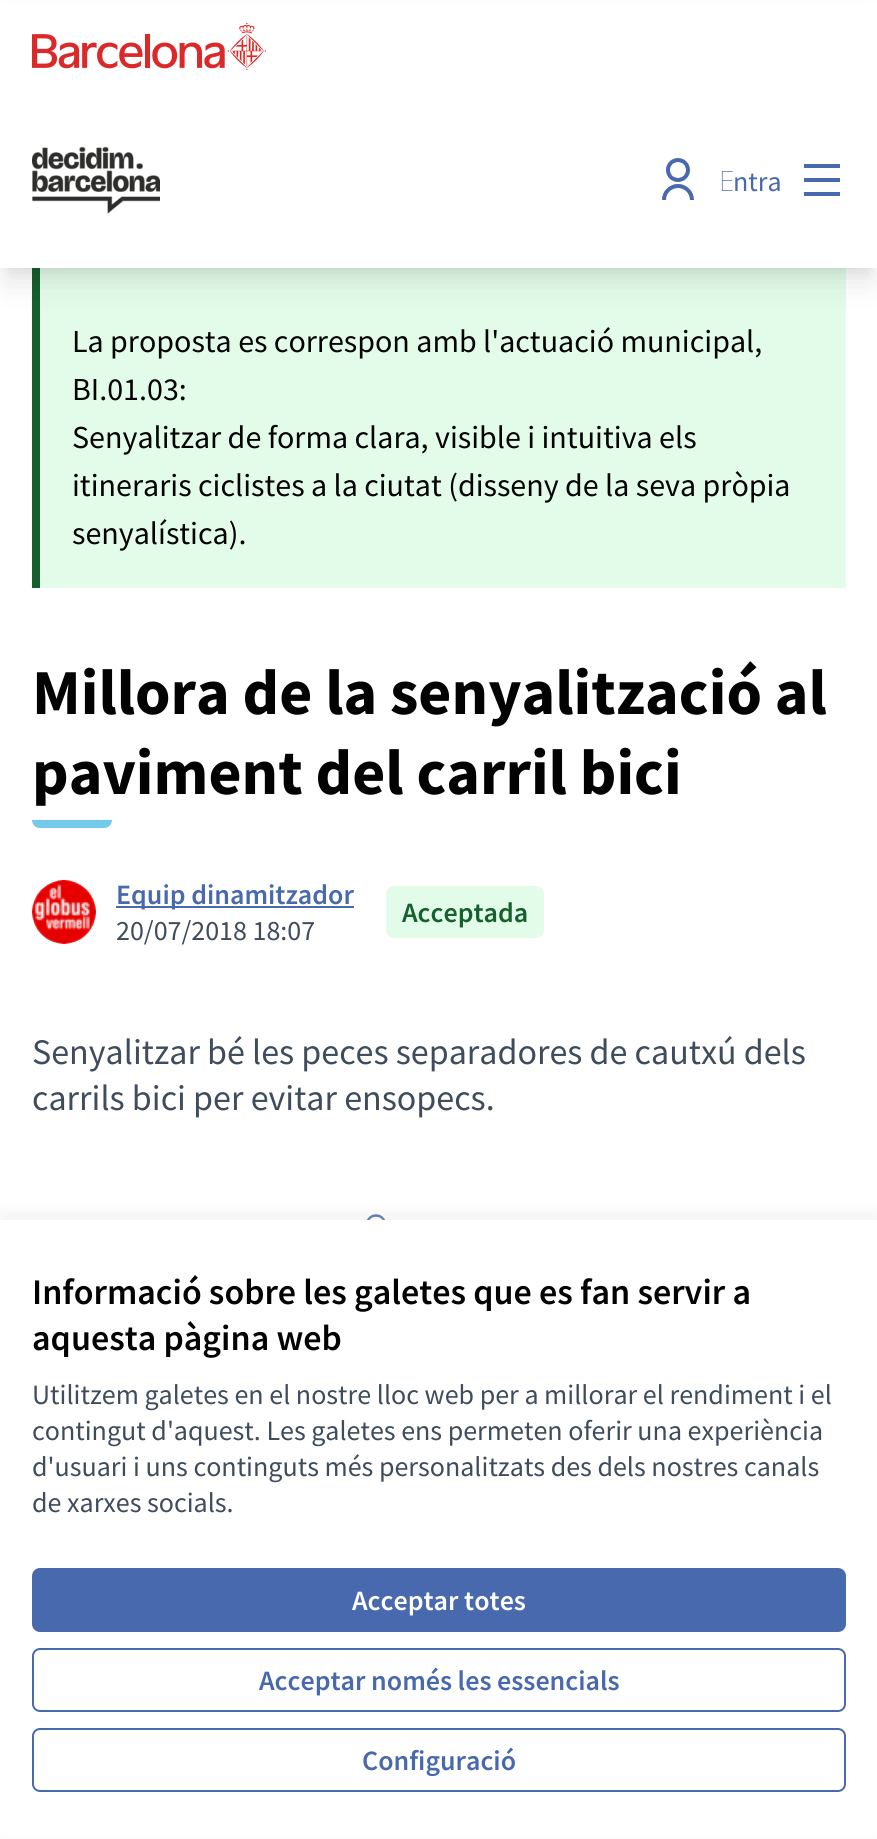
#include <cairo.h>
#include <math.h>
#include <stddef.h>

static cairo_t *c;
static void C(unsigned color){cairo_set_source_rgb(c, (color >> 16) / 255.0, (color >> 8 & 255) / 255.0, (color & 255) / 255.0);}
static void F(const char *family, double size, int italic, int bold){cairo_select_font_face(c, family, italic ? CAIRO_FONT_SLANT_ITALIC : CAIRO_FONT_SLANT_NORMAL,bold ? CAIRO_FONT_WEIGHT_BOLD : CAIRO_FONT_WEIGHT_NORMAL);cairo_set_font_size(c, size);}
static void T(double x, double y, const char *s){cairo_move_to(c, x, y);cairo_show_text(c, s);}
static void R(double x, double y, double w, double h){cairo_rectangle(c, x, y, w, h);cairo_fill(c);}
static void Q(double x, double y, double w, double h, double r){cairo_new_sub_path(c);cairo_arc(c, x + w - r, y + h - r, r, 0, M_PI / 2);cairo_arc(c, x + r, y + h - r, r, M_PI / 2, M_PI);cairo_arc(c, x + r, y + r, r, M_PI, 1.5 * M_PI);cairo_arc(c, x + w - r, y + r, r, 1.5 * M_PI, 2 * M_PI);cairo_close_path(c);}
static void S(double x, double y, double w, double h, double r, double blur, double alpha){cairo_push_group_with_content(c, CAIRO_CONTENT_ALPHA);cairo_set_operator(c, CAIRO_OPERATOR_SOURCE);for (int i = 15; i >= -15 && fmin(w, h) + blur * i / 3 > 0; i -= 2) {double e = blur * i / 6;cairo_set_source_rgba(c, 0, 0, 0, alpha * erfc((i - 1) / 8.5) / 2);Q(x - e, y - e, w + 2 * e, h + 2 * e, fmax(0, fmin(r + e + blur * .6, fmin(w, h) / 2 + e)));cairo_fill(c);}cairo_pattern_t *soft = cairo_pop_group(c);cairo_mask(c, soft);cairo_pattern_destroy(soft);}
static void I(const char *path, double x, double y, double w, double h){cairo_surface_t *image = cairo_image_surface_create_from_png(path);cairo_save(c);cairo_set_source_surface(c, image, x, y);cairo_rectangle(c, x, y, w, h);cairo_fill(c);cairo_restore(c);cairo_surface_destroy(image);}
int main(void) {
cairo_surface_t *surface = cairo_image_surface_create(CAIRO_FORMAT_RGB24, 877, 1839);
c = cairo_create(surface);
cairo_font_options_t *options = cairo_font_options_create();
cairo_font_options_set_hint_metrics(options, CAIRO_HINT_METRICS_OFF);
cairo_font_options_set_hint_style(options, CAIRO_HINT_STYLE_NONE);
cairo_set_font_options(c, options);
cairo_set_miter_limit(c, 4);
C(0xffffff);
cairo_paint(c);
C(0xe3fce9);
R(40,268,806,320);
C(0x15602c);
R(32,268,8,320);
C(0x000000);
S(8,16,862,252,0,6,.1);
S(6,26,866,256,0,15,.1);
C(0xffffff);
R(0,4,877,264);
I("1.png",32,22,234,48);
I("2.png",32,146,128,68);
I("3.png",662,158,32,42);
F("Noto Sans Thin",28,0,0);
C(0x4869ad);
T(719,191,"E");
F("Source Sans Pro",28,0,0);
T(733,191,"ntra");
I("4.png",804,164,36,32);
F("Source Sans Pro",32,0,0);
C(0x020203);
T(72,352,"La proposta es correspon amb l'actuació municipal,");
T(72,400,"BI.01.03:");
T(72,448,"Senyalitzar de forma clara, visible i intuitiva els");
T(72,496,"itineraris ciclistes a la ciutat (disseny de la seva pròpia");
T(72,544,"senyalística).");
F("Source Sans Pro",64,0,1);
T(32,714,"Millora de la senyalització al");
T(32,794,"paviment del carril bici");
C(0x73caea);
cairo_new_path(c);
cairo_move_to(c,32,820);
cairo_line_to(c,112,820);
cairo_curve_to(c,112,824.5,108.5,828,104,828);
cairo_line_to(c,40,828);
cairo_curve_to(c,35.5,828,32,824.5,32,820);
cairo_close_path(c);
cairo_fill(c);
I("5.png",32,880,64,64);
C(0x4869ad);
R(116,906,238,2);
F("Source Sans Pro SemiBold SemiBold",28,0,0);
T(116,904,"Equip dinamitzador");
F("Source Sans Pro",28,0,0);
C(0x3e4c5c);
T(116,940,"20/07/2018 18:07");
C(0xe3fce9);
Q(386,886,158,52,8);
cairo_fill(c);
F("Source Sans Pro SemiBold SemiBold",28,0,0);
C(0x15602c);
T(402,922,"Acceptada");
F("Source Sans Pro",36,0,0);
C(0x3e4c5c);
T(32,1064,"Senyalitzar bé les peces separadores de cautxú dels");
T(32,1110,"carrils bici per evitar ensopecs.");
I("6.png",366,1214,19,6);
C(0xd3d3d3);
S(0,1212,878,620,0,6,.25);
C(0xffffff);
R(0,1220,877,616);
F("Source Sans Pro SemiBold SemiBold",36,0,0);
C(0x020203);
T(32,1304,"Informació sobre les galetes que es fan servir a");
T(32,1350,"aquesta pàgina web");
F("Source Sans Pro",28,0,0);
C(0x3e4c5c);
T(32,1404,"Utilitzem galetes en el nostre lloc web per a millorar el rendiment i el");
T(32,1440,"contingut d'aquest. Les galetes ens permeten oferir una experiència");
T(32,1476,"d'usuari i uns continguts més personalitzats des dels nostres canals");
T(32,1512,"de xarxes socials.");
C(0x4869ad);
Q(32,1568,814,64,8);
cairo_fill(c);
F("Source Sans Pro SemiBold SemiBold",28,0,0);
C(0xffffff);
T(352,1610,"Acceptar totes");
Q(33,1649,812,62,7);
C(0x4869ad);
cairo_stroke(c);
T(259,1690,"Acceptar només les essencials");
Q(33,1729,812,62,7);
cairo_stroke(c);
T(362,1770,"Configuració");
cairo_surface_write_to_png(surface, "o.png");
cairo_font_options_destroy(options);
cairo_destroy(c);
cairo_surface_destroy(surface);
return 0;
}
